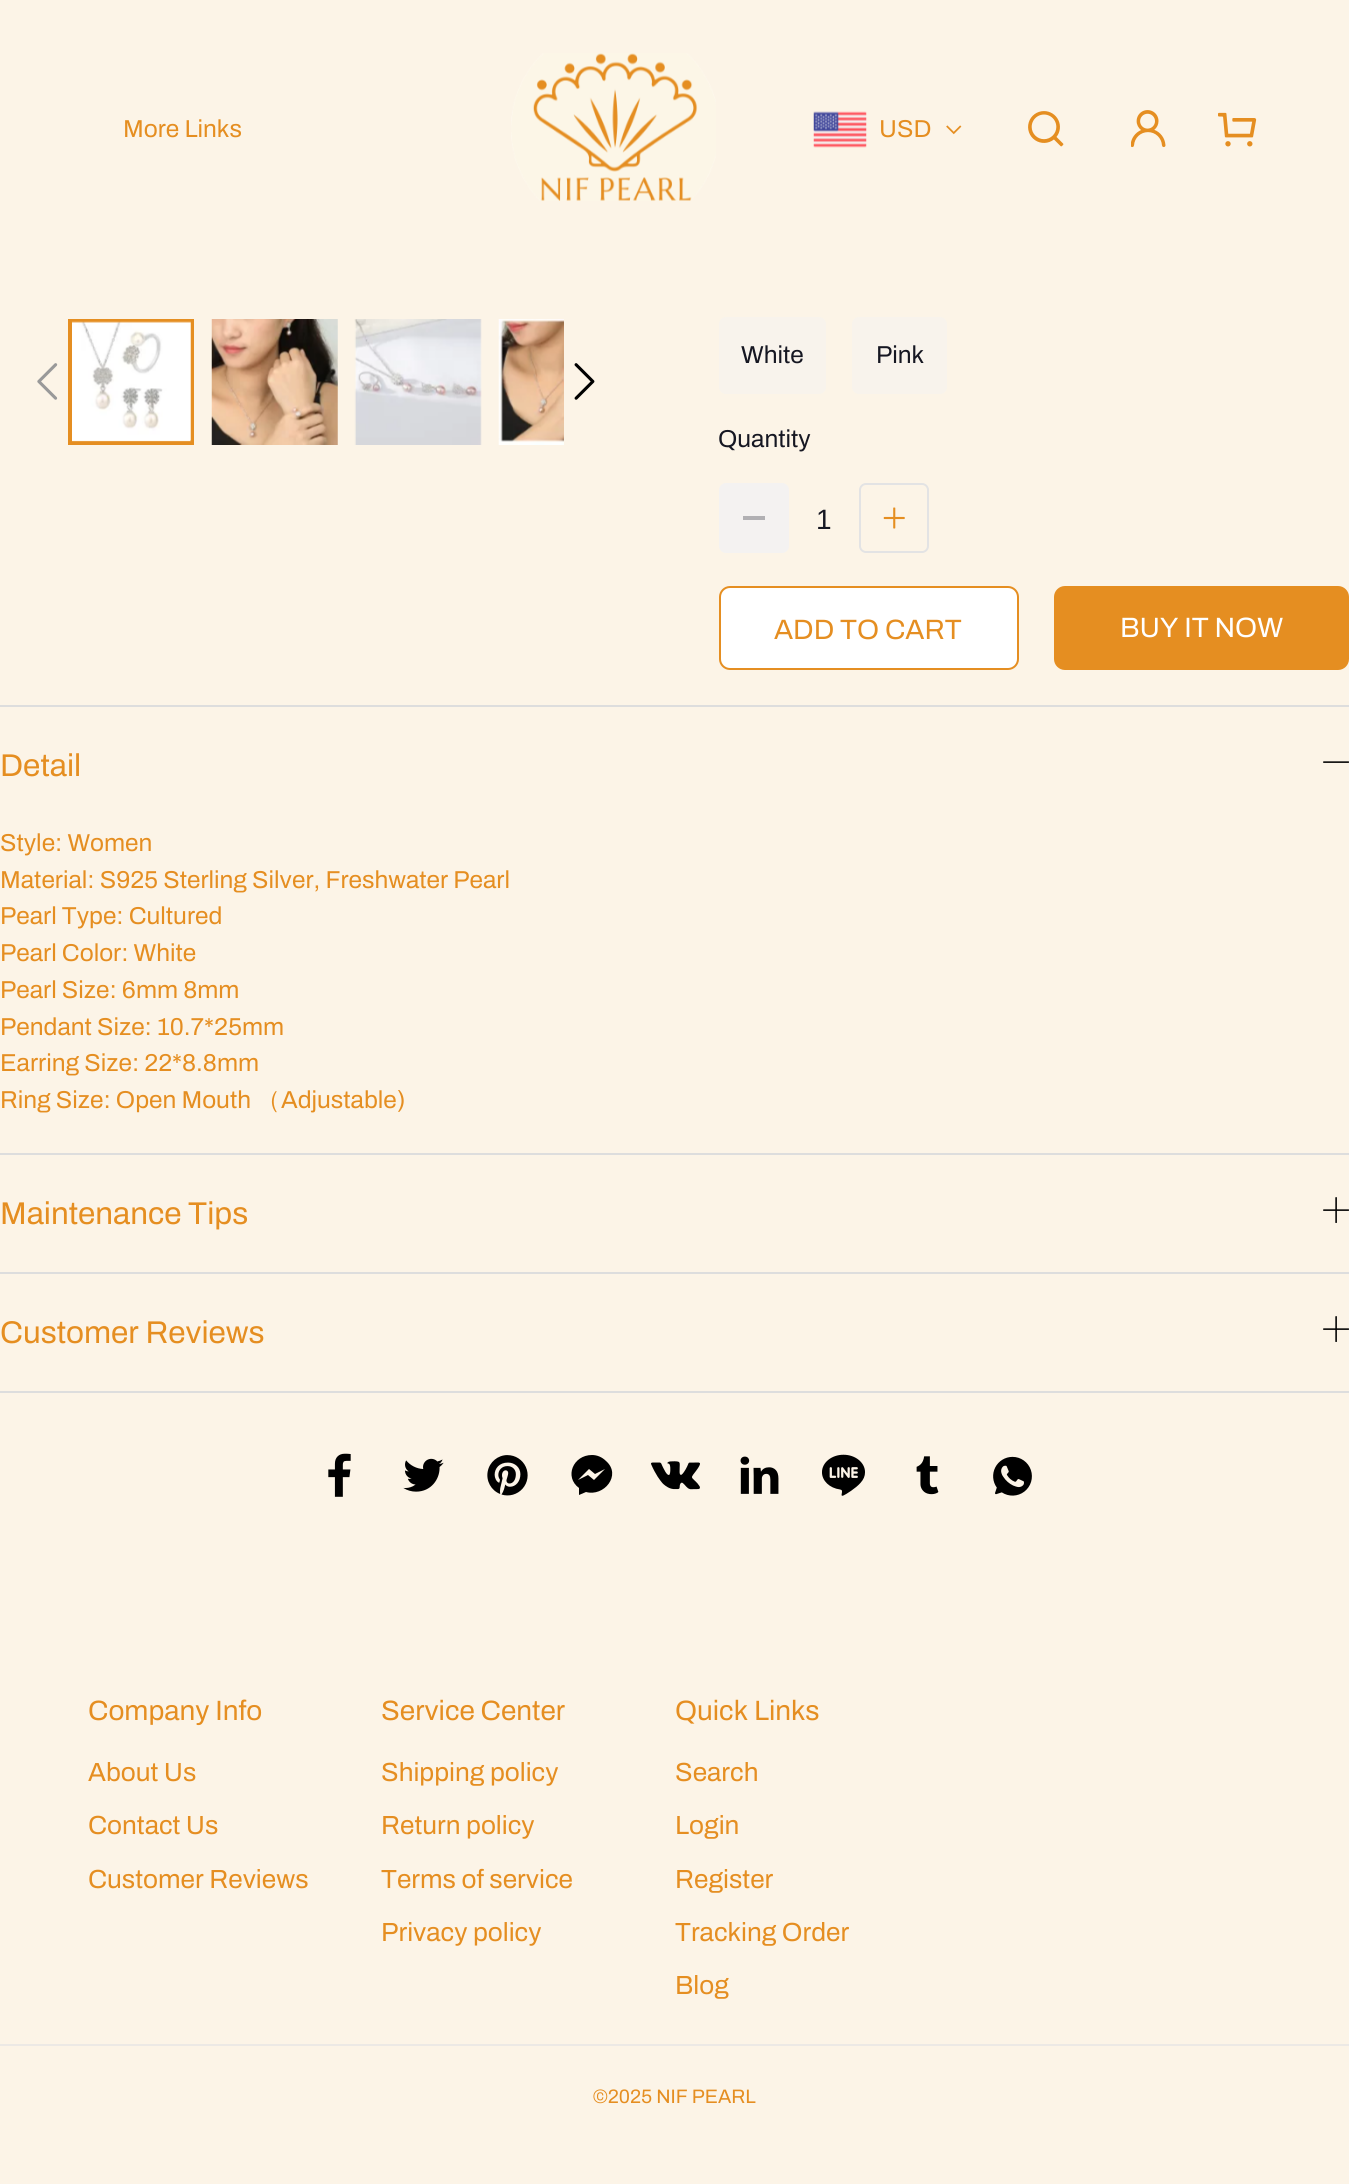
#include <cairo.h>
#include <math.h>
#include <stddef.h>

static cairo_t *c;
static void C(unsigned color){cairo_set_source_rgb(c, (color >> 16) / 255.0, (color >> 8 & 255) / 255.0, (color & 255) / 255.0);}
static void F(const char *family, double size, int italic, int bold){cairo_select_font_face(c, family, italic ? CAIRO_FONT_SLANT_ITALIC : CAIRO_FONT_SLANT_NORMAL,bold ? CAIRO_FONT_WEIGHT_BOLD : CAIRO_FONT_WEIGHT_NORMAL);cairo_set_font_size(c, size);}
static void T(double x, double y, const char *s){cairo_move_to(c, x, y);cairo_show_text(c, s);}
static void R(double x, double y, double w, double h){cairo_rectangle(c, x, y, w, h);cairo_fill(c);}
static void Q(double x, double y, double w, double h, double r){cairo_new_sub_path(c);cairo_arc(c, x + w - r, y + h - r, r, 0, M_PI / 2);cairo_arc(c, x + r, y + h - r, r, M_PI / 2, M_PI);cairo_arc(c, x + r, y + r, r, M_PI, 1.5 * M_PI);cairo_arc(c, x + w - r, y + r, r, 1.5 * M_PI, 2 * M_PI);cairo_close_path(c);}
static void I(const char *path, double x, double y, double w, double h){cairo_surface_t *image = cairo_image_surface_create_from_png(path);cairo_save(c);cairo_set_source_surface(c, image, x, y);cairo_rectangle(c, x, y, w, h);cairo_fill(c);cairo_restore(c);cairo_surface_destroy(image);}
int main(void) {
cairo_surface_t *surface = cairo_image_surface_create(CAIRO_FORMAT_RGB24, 1349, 2184);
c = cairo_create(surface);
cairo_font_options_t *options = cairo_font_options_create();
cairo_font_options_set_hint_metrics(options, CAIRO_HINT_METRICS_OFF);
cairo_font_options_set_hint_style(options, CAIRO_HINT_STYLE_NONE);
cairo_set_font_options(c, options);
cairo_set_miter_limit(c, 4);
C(0xfcf4e7);
cairo_paint(c);
F("Archivo SemiBold",24.5,0,0);
C(0xe58e21);
T(123,137,"More Links");
I("1.png",511,53,205,148);
I("2.png",813,111,54,37);
T(879,137,"USD");
I("3.png",946,125,16,10);
I("4.png",1028,111,36,36);
I("5.png",1131,110,35,38);
I("6.png",1218,112,39,35);
I("7.png",37,363,21,37);
cairo_rectangle(c,70,321,122,122);
cairo_set_line_width(c,4);
cairo_stroke(c);
I("8.png",72,321,119,121);
I("9.png",211,319,127,126);
I("10.png",354,319,128,126);
I("11.png",498,319,66,126);
I("12.png",574,363,21,37);
C(0xf8f3ec);
Q(719,317,107,77,7);
cairo_fill(c);
C(0x161722);
T(741,363,"White");
C(0xf8f3ec);
Q(852,317,95,77,7);
cairo_fill(c);
C(0x161722);
T(876,363,"Pink");
T(718,447,"Quantity");
C(0xf4f2f1);
Q(719,483,70,70,7);
cairo_fill(c);
C(0xb1b0b3);
R(743,516,22,4);
F("Liberation Sans",28,0,0);
C(0x161722);
T(816,529,"1");
Q(860,484,68,68,6);
C(0xe3e3e4);
cairo_set_line_width(c,2);
cairo_stroke(c);
I("13.png",883,507,22,22);
C(0xffffff);
Q(720,587,298,82,10);
cairo_fill_preserve(c);
C(0xe58e21);
cairo_stroke(c);
F("Archivo SemiBold",28,0,0);
T(774,639,"ADD TO CART");
Q(1054,586,295,84,11);
cairo_fill(c);
C(0xffffff);
T(1120,637,"BUY IT NOW");
C(0xdddddd);
R(0,705,1349,2);
R(0,1153,1349,2);
F("Archivo SemiBold",31.5,0,0);
C(0xe58e21);
T(0,776,"Detail");
I("14.png",1323,761,26,2);
F("Archivo SemiBold",24.5,0,0);
T(0,851,"Style: Women");
T(0,888,"Material: S925 Sterling Silver, Freshwater Pearl");
T(0,924,"Pearl Type: Cultured");
T(0,961,"Pearl Color: White");
T(0,998,"Pearl Size: 6mm 8mm");
T(0,1035,"Pendant Size: 10.7*25mm");
T(0,1071,"Earring Size: 22*8.8mm");
T(0,1108,"Ring Size: Open Mouth");
F("WenQuanYi Zen Hei Medium",24.5,0,0);
T(256,1108,"（");
F("Archivo SemiBold",24.5,0,0);
T(281,1108,"Adjustable)");
C(0xdddddd);
R(0,1272,1349,2);
F("Archivo SemiBold",31.5,0,0);
C(0xe58e21);
T(0,1224,"Maintenance Tips");
I("15.png",1323,1197,26,26);
C(0xdddddd);
R(0,1391,1349,2);
C(0xe58e21);
T(0,1343,"Customer Reviews");
I("15.png",1323,1316,26,26);
I("16.png",328,1453,23,44);
I("17.png",403,1458,41,34);
I("18.png",487,1455,41,41);
C(0x000000);
cairo_new_path(c);
cairo_move_to(c,592,1455);
cairo_curve_to(c,573,1455,564,1477,579,1488);
cairo_line_to(c,579,1495);
cairo_line_to(c,586,1492);
cairo_curve_to(c,604,1497,622,1475,606,1461);
cairo_curve_to(c,602,1457,597,1455,592,1455);
cairo_close_path(c);
cairo_move_to(c,594,1480);
cairo_line_to(c,588,1475);
cairo_line_to(c,578,1480);
cairo_line_to(c,589,1469);
cairo_line_to(c,595,1474);
cairo_line_to(c,605,1469);
cairo_close_path(c);
cairo_fill(c);
I("19.png",651,1461,49,29);
I("20.png",740,1456,39,38);
I("21.png",822,1454,43,42);
I("22.png",916,1456,23,39);
I("23.png",993,1456,39,40);
F("Archivo SemiBold",28,0,0);
C(0xe58e21);
T(88,1720,"Company Info");
F("Archivo SemiBold",26.25,0,0);
T(88,1781,"About Us");
T(88,1834,"Contact Us");
T(88,1888,"Customer Reviews");
F("Archivo SemiBold",28,0,0);
T(381,1720,"Service Center");
F("Archivo SemiBold",26.25,0,0);
T(381,1781,"Shipping policy");
T(381,1834,"Return policy");
T(381,1888,"Terms of service");
T(381,1941,"Privacy policy");
F("Archivo SemiBold",28,0,0);
T(675,1720,"Quick Links");
F("Archivo SemiBold",26.25,0,0);
T(675,1781,"Search");
T(675,1834,"Login");
T(675,1888,"Register");
T(675,1941,"Tracking Order");
T(675,1994,"Blog");
C(0xece9e5);
R(0,2044,1349,2);
F("Archivo SemiBold",19.5,0,0);
C(0xe58e21);
T(593,2103,"©2025 NIF PEARL");
cairo_surface_write_to_png(surface, "o.png");
cairo_font_options_destroy(options);
cairo_destroy(c);
cairo_surface_destroy(surface);
return 0;
}
